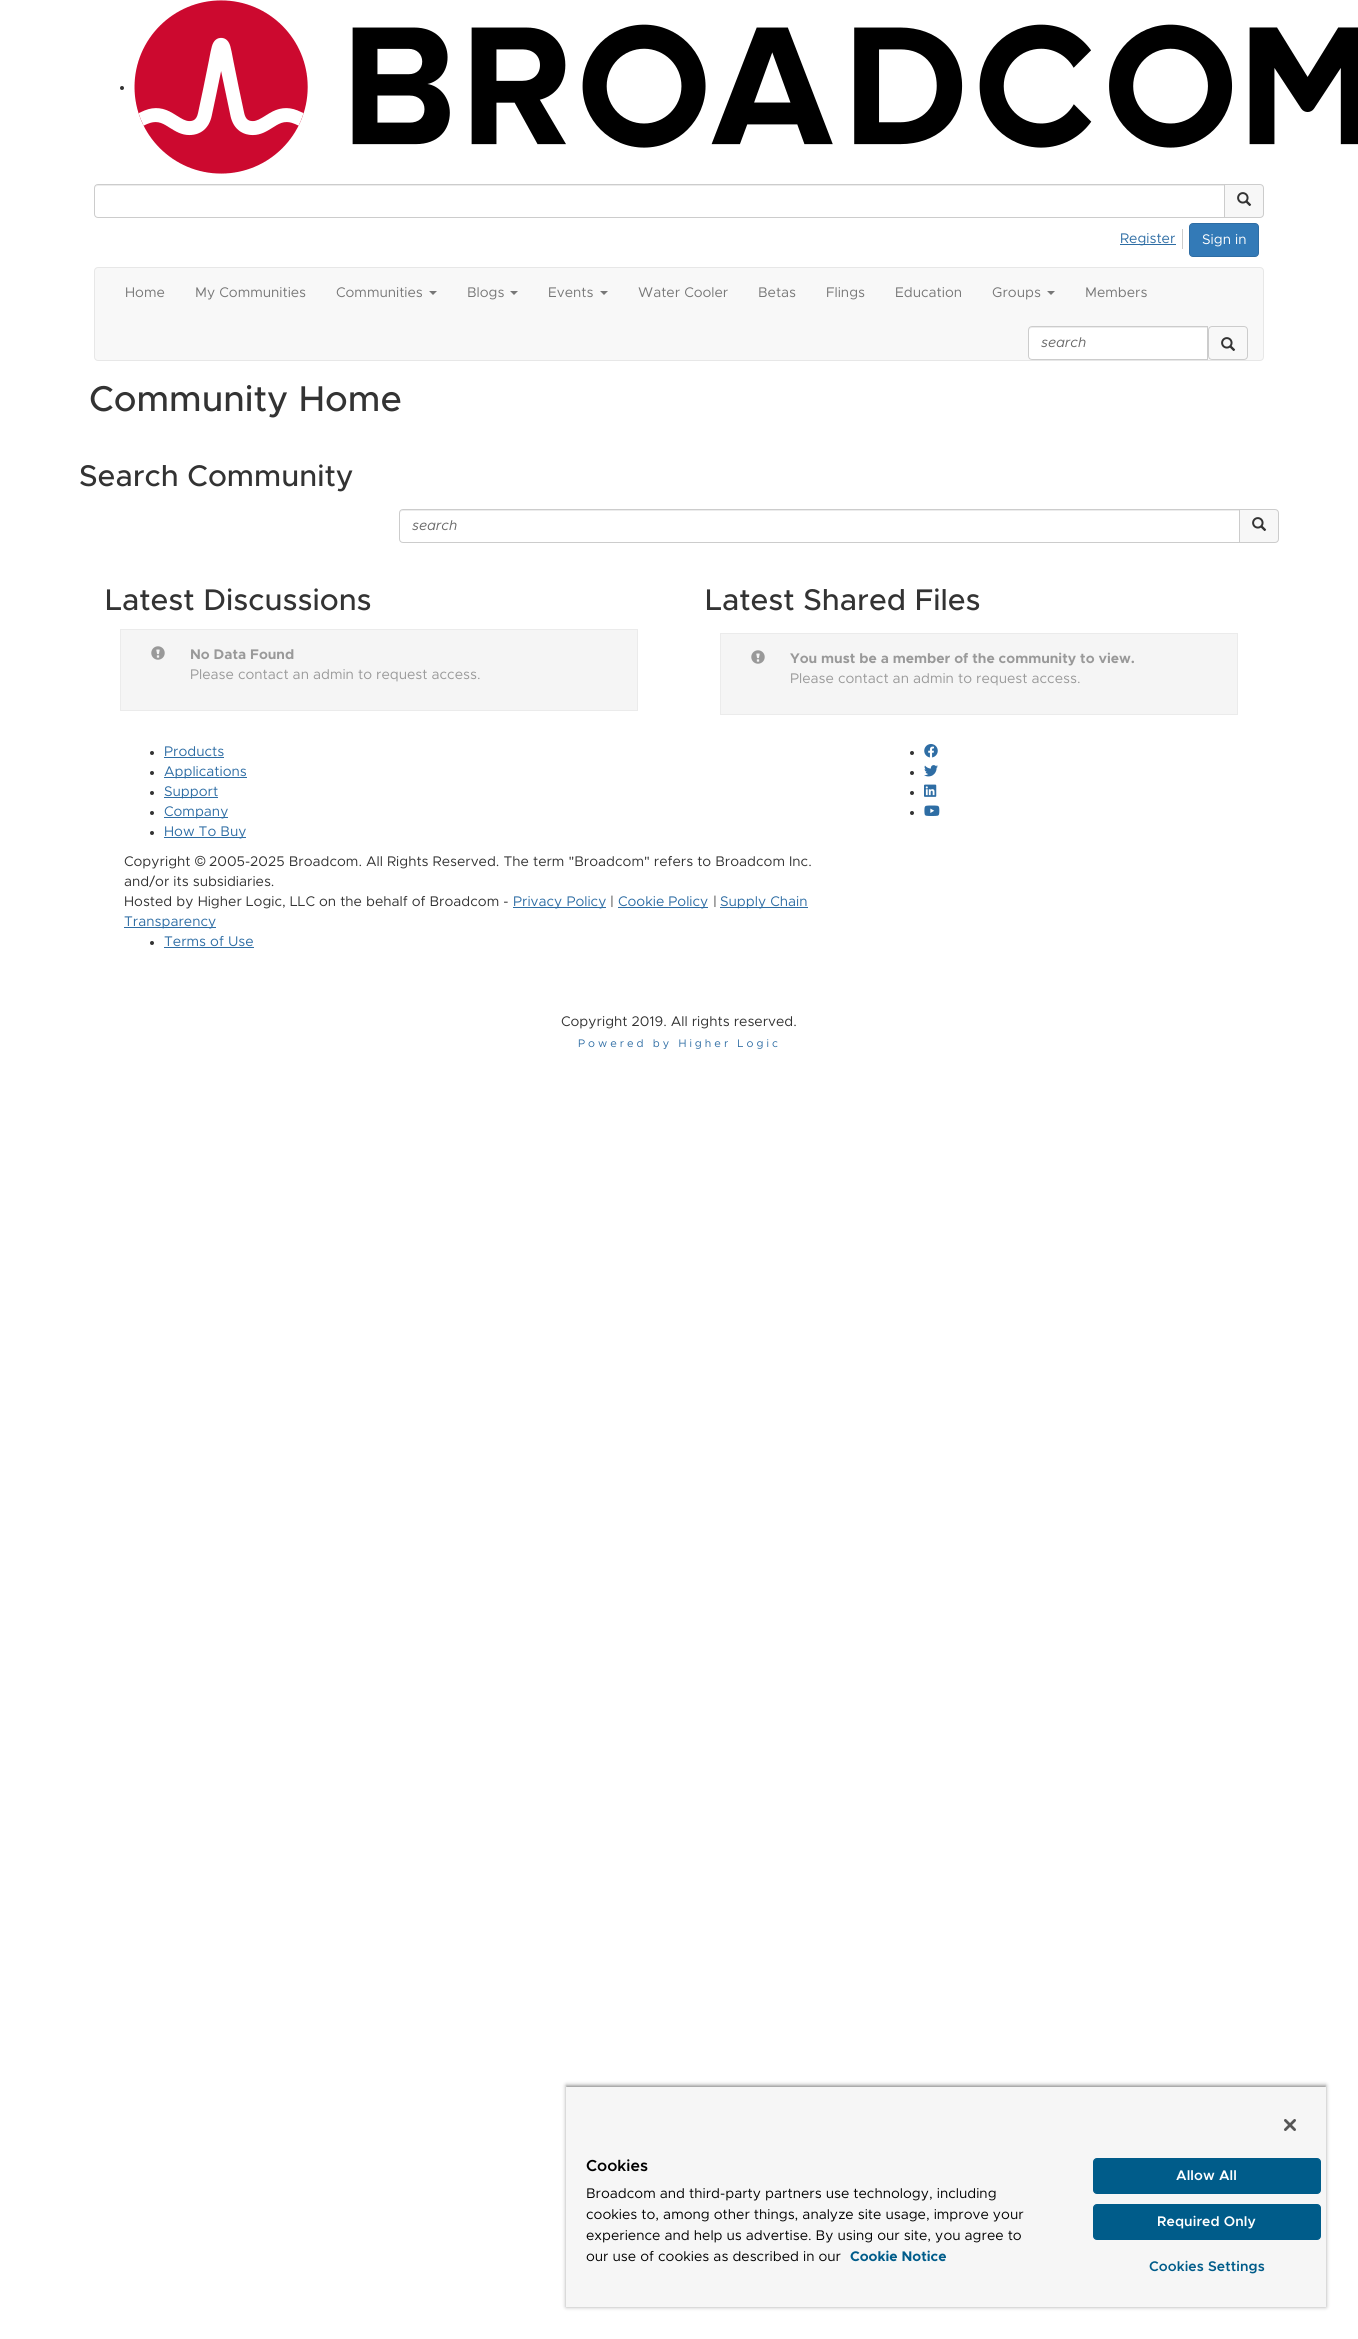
#include <cairo.h>
#include <math.h>
#include <stddef.h>

static cairo_t *c;
static void C(unsigned color){cairo_set_source_rgb(c, (color >> 16) / 255.0, (color >> 8 & 255) / 255.0, (color & 255) / 255.0);}
static void F(const char *family, double size, int italic, int bold){cairo_select_font_face(c, family, italic ? CAIRO_FONT_SLANT_ITALIC : CAIRO_FONT_SLANT_NORMAL,bold ? CAIRO_FONT_WEIGHT_BOLD : CAIRO_FONT_WEIGHT_NORMAL);cairo_set_font_size(c, size);}
static void T(double x, double y, const char *s){cairo_move_to(c, x, y);cairo_show_text(c, s);}
static void L(double x, double y, const char *s, double letter, double word){cairo_move_to(c, x, y);while (*s) {char ch[5] = {0};int n = 0;do ch[n++] = *s++; while ((*s & 0xC0) == 0x80);cairo_show_text(c, ch);cairo_rel_move_to(c, letter + word * (*ch == ' '), 0);}}
static void R(double x, double y, double w, double h){cairo_rectangle(c, x, y, w, h);cairo_fill(c);}
static void Q(double x, double y, double w, double h, double r){cairo_new_sub_path(c);cairo_arc(c, x + w - r, y + h - r, r, 0, M_PI / 2);cairo_arc(c, x + r, y + h - r, r, M_PI / 2, M_PI);cairo_arc(c, x + r, y + r, r, M_PI, 1.5 * M_PI);cairo_arc(c, x + w - r, y + r, r, 1.5 * M_PI, 2 * M_PI);cairo_close_path(c);}
static void S(double x, double y, double w, double h, double r, double blur, double alpha){cairo_push_group_with_content(c, CAIRO_CONTENT_ALPHA);cairo_set_operator(c, CAIRO_OPERATOR_SOURCE);for (int i = 15; i >= -15 && fmin(w, h) + blur * i / 3 > 0; i -= 2) {double e = blur * i / 6;cairo_set_source_rgba(c, 0, 0, 0, alpha * erfc((i - 1) / 8.5) / 2);Q(x - e, y - e, w + 2 * e, h + 2 * e, fmax(0, fmin(r + e + blur * .6, fmin(w, h) / 2 + e)));cairo_fill(c);}cairo_pattern_t *soft = cairo_pop_group(c);cairo_mask(c, soft);cairo_pattern_destroy(soft);}
static void I(const char *path, double x, double y, double w, double h){cairo_surface_t *image = cairo_image_surface_create_from_png(path);cairo_save(c);cairo_set_source_surface(c, image, x, y);cairo_rectangle(c, x, y, w, h);cairo_fill(c);cairo_restore(c);cairo_surface_destroy(image);}
int main(void) {
cairo_surface_t *surface = cairo_image_surface_create(CAIRO_FORMAT_RGB24, 1358, 2339);
c = cairo_create(surface);
cairo_font_options_t *options = cairo_font_options_create();
cairo_font_options_set_hint_metrics(options, CAIRO_HINT_METRICS_OFF);
cairo_font_options_set_hint_style(options, CAIRO_HINT_STYLE_NONE);
cairo_set_font_options(c, options);
cairo_set_miter_limit(c, 4);
C(0xffffff);
cairo_paint(c);
C(0x333333);
cairo_arc(c,122,88,2,0,2 * M_PI);
cairo_fill(c);
I("1.png",134,0,1224,174);
C(0xececec);
cairo_new_path(c);
cairo_move_to(c,98,186);
cairo_line_to(c,1224,186);
cairo_line_to(c,1224,185);
cairo_line_to(c,98,185);
cairo_curve_to(c,96,185,95,187,95,189);
cairo_curve_to(c,95,187,96,186,98,186);
cairo_close_path(c);
cairo_fill(c);
cairo_new_path(c);
cairo_move_to(c,98,184.5);
cairo_line_to(c,1224.5,184.5);
cairo_line_to(c,1224.5,217.5);
cairo_line_to(c,98,217.5);
cairo_curve_to(c,96,217.5,94.5,216,94.5,214);
cairo_line_to(c,94.5,188);
cairo_curve_to(c,94.5,186,96,184.5,98,184.5);
cairo_close_path(c);
C(0xcccccc);
cairo_set_line_width(c,1);
cairo_stroke(c);
C(0xf7f7f7);
cairo_new_path(c);
cairo_move_to(c,1224.5,184.5);
cairo_line_to(c,1260,184.5);
cairo_curve_to(c,1262,184.5,1263.5,186,1263.5,188);
cairo_line_to(c,1263.5,214);
cairo_curve_to(c,1263.5,216,1262,217.5,1260,217.5);
cairo_line_to(c,1224.5,217.5);
cairo_close_path(c);
cairo_fill_preserve(c);
C(0xcccccc);
cairo_stroke(c);
I("2.png",1237,192,15,14);
R(1182,229,1,20);
C(0x2e6da4);
R(1120,244,56,1);
F("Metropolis",14,0,0);
T(1120,243,"Register");
C(0x337ab7);
Q(1189.5,223.5,69,33,3.5);
cairo_fill_preserve(c);
C(0x2e6da4);
cairo_stroke(c);
C(0xffffff);
T(1202,244,"Sign in");
C(0xf8f8f8);
Q(94.5,267.5,1169,93,3.5);
cairo_fill_preserve(c);
C(0xe7e7e7);
cairo_stroke(c);
C(0x777777);
T(125,297,"Home");
T(195,297,"My Communities");
T(336,297,"Communities");
cairo_new_path(c);
cairo_move_to(c,429,291);
cairo_line_to(c,437,291);
cairo_line_to(c,433,295);
cairo_close_path(c);
cairo_fill(c);
T(467,297,"Blogs");
cairo_new_path(c);
cairo_move_to(c,510,291);
cairo_line_to(c,518,291);
cairo_line_to(c,514,295);
cairo_close_path(c);
cairo_fill(c);
T(548,297,"Events");
cairo_new_path(c);
cairo_move_to(c,600,291);
cairo_line_to(c,608,291);
cairo_line_to(c,604,295);
cairo_close_path(c);
cairo_fill(c);
T(638,297,"Water Cooler");
T(758,297,"Betas");
T(826,297,"Flings");
T(895,297,"Education");
T(992,297,"Groups");
cairo_new_path(c);
cairo_move_to(c,1047,291);
cairo_line_to(c,1055,291);
cairo_line_to(c,1051,295);
cairo_close_path(c);
cairo_fill(c);
T(1085,297,"Members");
C(0xffffff);
cairo_new_path(c);
cairo_move_to(c,1032,326);
cairo_line_to(c,1208,326);
cairo_line_to(c,1208,360);
cairo_line_to(c,1032,360);
cairo_curve_to(c,1030,360,1028,358,1028,356);
cairo_line_to(c,1028,330);
cairo_curve_to(c,1028,328,1030,326,1032,326);
cairo_close_path(c);
cairo_fill(c);
C(0xececec);
cairo_new_path(c);
cairo_move_to(c,1032,328);
cairo_line_to(c,1207,328);
cairo_line_to(c,1207,327);
cairo_line_to(c,1031,327);
cairo_curve_to(c,1029,328,1029,329,1029,331);
cairo_curve_to(c,1029,329,1030,328,1032,328);
cairo_close_path(c);
cairo_fill(c);
cairo_new_path(c);
cairo_move_to(c,1032,326.5);
cairo_line_to(c,1207.5,326.5);
cairo_line_to(c,1207.5,359.5);
cairo_line_to(c,1032,359.5);
cairo_curve_to(c,1030,359.5,1028.5,358,1028.5,356);
cairo_line_to(c,1028.5,330);
cairo_curve_to(c,1028.5,328,1030,326.5,1032,326.5);
cairo_close_path(c);
C(0xcccccc);
cairo_stroke(c);
F("Metropolis",14,1,0);
C(0x666666);
T(1041,347,"search");
Q(1208.5,326.5,39,33,3.5);
C(0xcccccc);
cairo_stroke(c);
I("3.png",1221,337,15,14);
F("Metropolis Medium",36,0,0);
C(0x333333);
T(89,411,"Community Home");
F("Metropolis Medium",30,0,0);
T(79,486,"Search Community");
C(0xececec);
cairo_new_path(c);
cairo_move_to(c,403,511);
cairo_line_to(c,1239,511);
cairo_line_to(c,1239,510);
cairo_line_to(c,403,510);
cairo_curve_to(c,401,510,400,512,400,514);
cairo_curve_to(c,400,512,401,511,403,511);
cairo_close_path(c);
cairo_fill(c);
cairo_new_path(c);
cairo_move_to(c,403,509.5);
cairo_line_to(c,1239.5,509.5);
cairo_line_to(c,1239.5,542.5);
cairo_line_to(c,403,542.5);
cairo_curve_to(c,401,542.5,399.5,541,399.5,539);
cairo_line_to(c,399.5,513);
cairo_curve_to(c,399.5,511,401,509.5,403,509.5);
cairo_close_path(c);
C(0xcccccc);
cairo_stroke(c);
F("Metropolis",14,1,0);
C(0x666666);
T(412,530,"search");
C(0xf7f7f7);
cairo_new_path(c);
cairo_move_to(c,1239.5,509.5);
cairo_line_to(c,1275,509.5);
cairo_curve_to(c,1277,509.5,1278.5,511,1278.5,513);
cairo_line_to(c,1278.5,539);
cairo_curve_to(c,1278.5,541,1277,542.5,1275,542.5);
cairo_line_to(c,1239.5,542.5);
cairo_close_path(c);
cairo_fill_preserve(c);
C(0xcccccc);
cairo_stroke(c);
I("2.png",1252,517,15,14);
F("Metropolis Medium",30,0,0);
C(0x333333);
T(105,610,"Latest Discussions");
C(0xf5f5f5);
cairo_rectangle(c,120.5,629.5,517,81);
cairo_fill_preserve(c);
C(0xebebeb);
cairo_stroke(c);
I("4.png",151,646,14,14);
F("Metropolis",14,0,1);
C(0x999999);
T(190,659,"No Data Found");
F("Metropolis",14,0,0);
T(190,679,"Please contact an admin to request access.");
F("Metropolis Medium",30,0,0);
C(0x333333);
T(705,610,"Latest Shared Files");
C(0xf5f5f5);
cairo_rectangle(c,720.5,633.5,517,81);
cairo_fill_preserve(c);
C(0xebebeb);
cairo_stroke(c);
I("4.png",751,650,14,14);
F("Metropolis",14,0,1);
C(0x999999);
T(790,663,"You must be a member of the community to view.");
F("Metropolis",14,0,0);
T(790,683,"Please contact an admin to request access.");
C(0x333333);
cairo_new_path(c);
cairo_arc(c,152,753,2,0,2 * M_PI);
cairo_fill(c);
C(0x2e6da4);
T(164,756,"Products");
R(164,757,60,1);
C(0x333333);
cairo_new_path(c);
cairo_arc(c,152,773,2,0,2 * M_PI);
cairo_fill(c);
C(0x2e6da4);
R(164,777,83,1);
T(164,776,"Applications");
C(0x333333);
cairo_new_path(c);
cairo_arc(c,152,793,2,0,2 * M_PI);
cairo_fill(c);
C(0x2e6da4);
R(164,797,54,1);
T(164,796,"Support");
C(0x333333);
cairo_new_path(c);
cairo_arc(c,152,813,2,0,2 * M_PI);
cairo_fill(c);
C(0x2e6da4);
R(164,817,64,1);
T(164,816,"Company");
C(0x333333);
cairo_new_path(c);
cairo_arc(c,152,833,2,0,2 * M_PI);
cairo_fill(c);
C(0x2e6da4);
R(164,837,82,1);
T(164,836,"How To Buy");
C(0x333333);
T(124,866,"Copyright");
F("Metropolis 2",14,0,0);
T(195,866,"©");
F("Metropolis",14,0,0);
T(209,866,"2005-2025 Broadcom. All Rights Reserved. The term \"Broadcom\" refers to Broadcom Inc.");
T(124,886,"and/or its subsidiaries.");
T(124,906,"Hosted by Higher Logic, LLC on the behalf of Broadcom -");
C(0x2e6da4);
R(513,907,93,1);
T(513,906,"Privacy Policy");
C(0x333333);
T(610,906,"|");
C(0x2e6da4);
R(618,907,90,1);
T(618,906,"Cookie Policy");
C(0x333333);
T(713,906,"|");
C(0x2e6da4);
R(720,907,88,1);
T(720,906,"Supply Chain");
R(124,927,92,1);
T(124,926,"Transparency");
C(0x333333);
cairo_new_path(c);
cairo_arc(c,152,943,2,0,2 * M_PI);
cairo_fill(c);
C(0x2e6da4);
T(164,946,"Terms of Use");
R(164,947,90,1);
C(0x333333);
cairo_new_path(c);
cairo_arc(c,912,753,2,0,2 * M_PI);
cairo_fill(c);
I("5.png",924,744,14,14);
cairo_arc(c,912,773,2,0,2 * M_PI);
cairo_fill(c);
I("6.png",924,765,14,12);
cairo_arc(c,912,793,2,0,2 * M_PI);
cairo_fill(c);
I("7.png",924,784,13,13);
cairo_arc(c,912,813,2,0,2 * M_PI);
cairo_fill(c);
I("8.png",924,805,16,11);
T(561,1026,"Copyright 2019. All rights reserved.");
F("Metropolis",11,0,0);
C(0x2e6da4);
L(578,1047,"Powered by Higher Logic",3,0);
C(0x000000);
S(566,2085,760,222,0,2,.35);
cairo_save(c);
cairo_rectangle(c,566,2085,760,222);
cairo_clip(c);
S(566,2087,760,220,0,2,.2);
cairo_restore(c);
C(0xf6f6f6);
R(566,2087,760,220);
I("9.png",1284,2119,12,12);
F("Metropolis SemiBold",16,0,0);
C(0x000000);
T(586,2171,"Cookies");
F("Metropolis",14,0,0);
T(586,2198,"Broadcom and third-party partners use technology, including");
T(586,2219,"cookies to, among other things, analyze site usage, improve your");
T(586,2240,"experience and help us advertise. By using our site, you agree to");
T(586,2261,"our use of cookies as described in our");
F("Metropolis",14,0,1);
C(0x005c8a);
T(850,2261,"Cookie Notice");
Q(1093.5,2158.5,227,35,3.5);
cairo_fill_preserve(c);
cairo_stroke(c);
F("Metropolis SemiBold",14,0,0);
C(0xffffff);
L(1176,2180,"Allow All",.1,0);
C(0x005c8a);
Q(1093.5,2204.5,227,35,3.5);
cairo_fill_preserve(c);
cairo_stroke(c);
C(0xffffff);
L(1157,2226,"Required Only",.1,0);
C(0x005c8a);
L(1149,2271,"Cookies Settings",.1,0);
cairo_surface_write_to_png(surface, "o.png");
cairo_font_options_destroy(options);
cairo_destroy(c);
cairo_surface_destroy(surface);
return 0;
}
